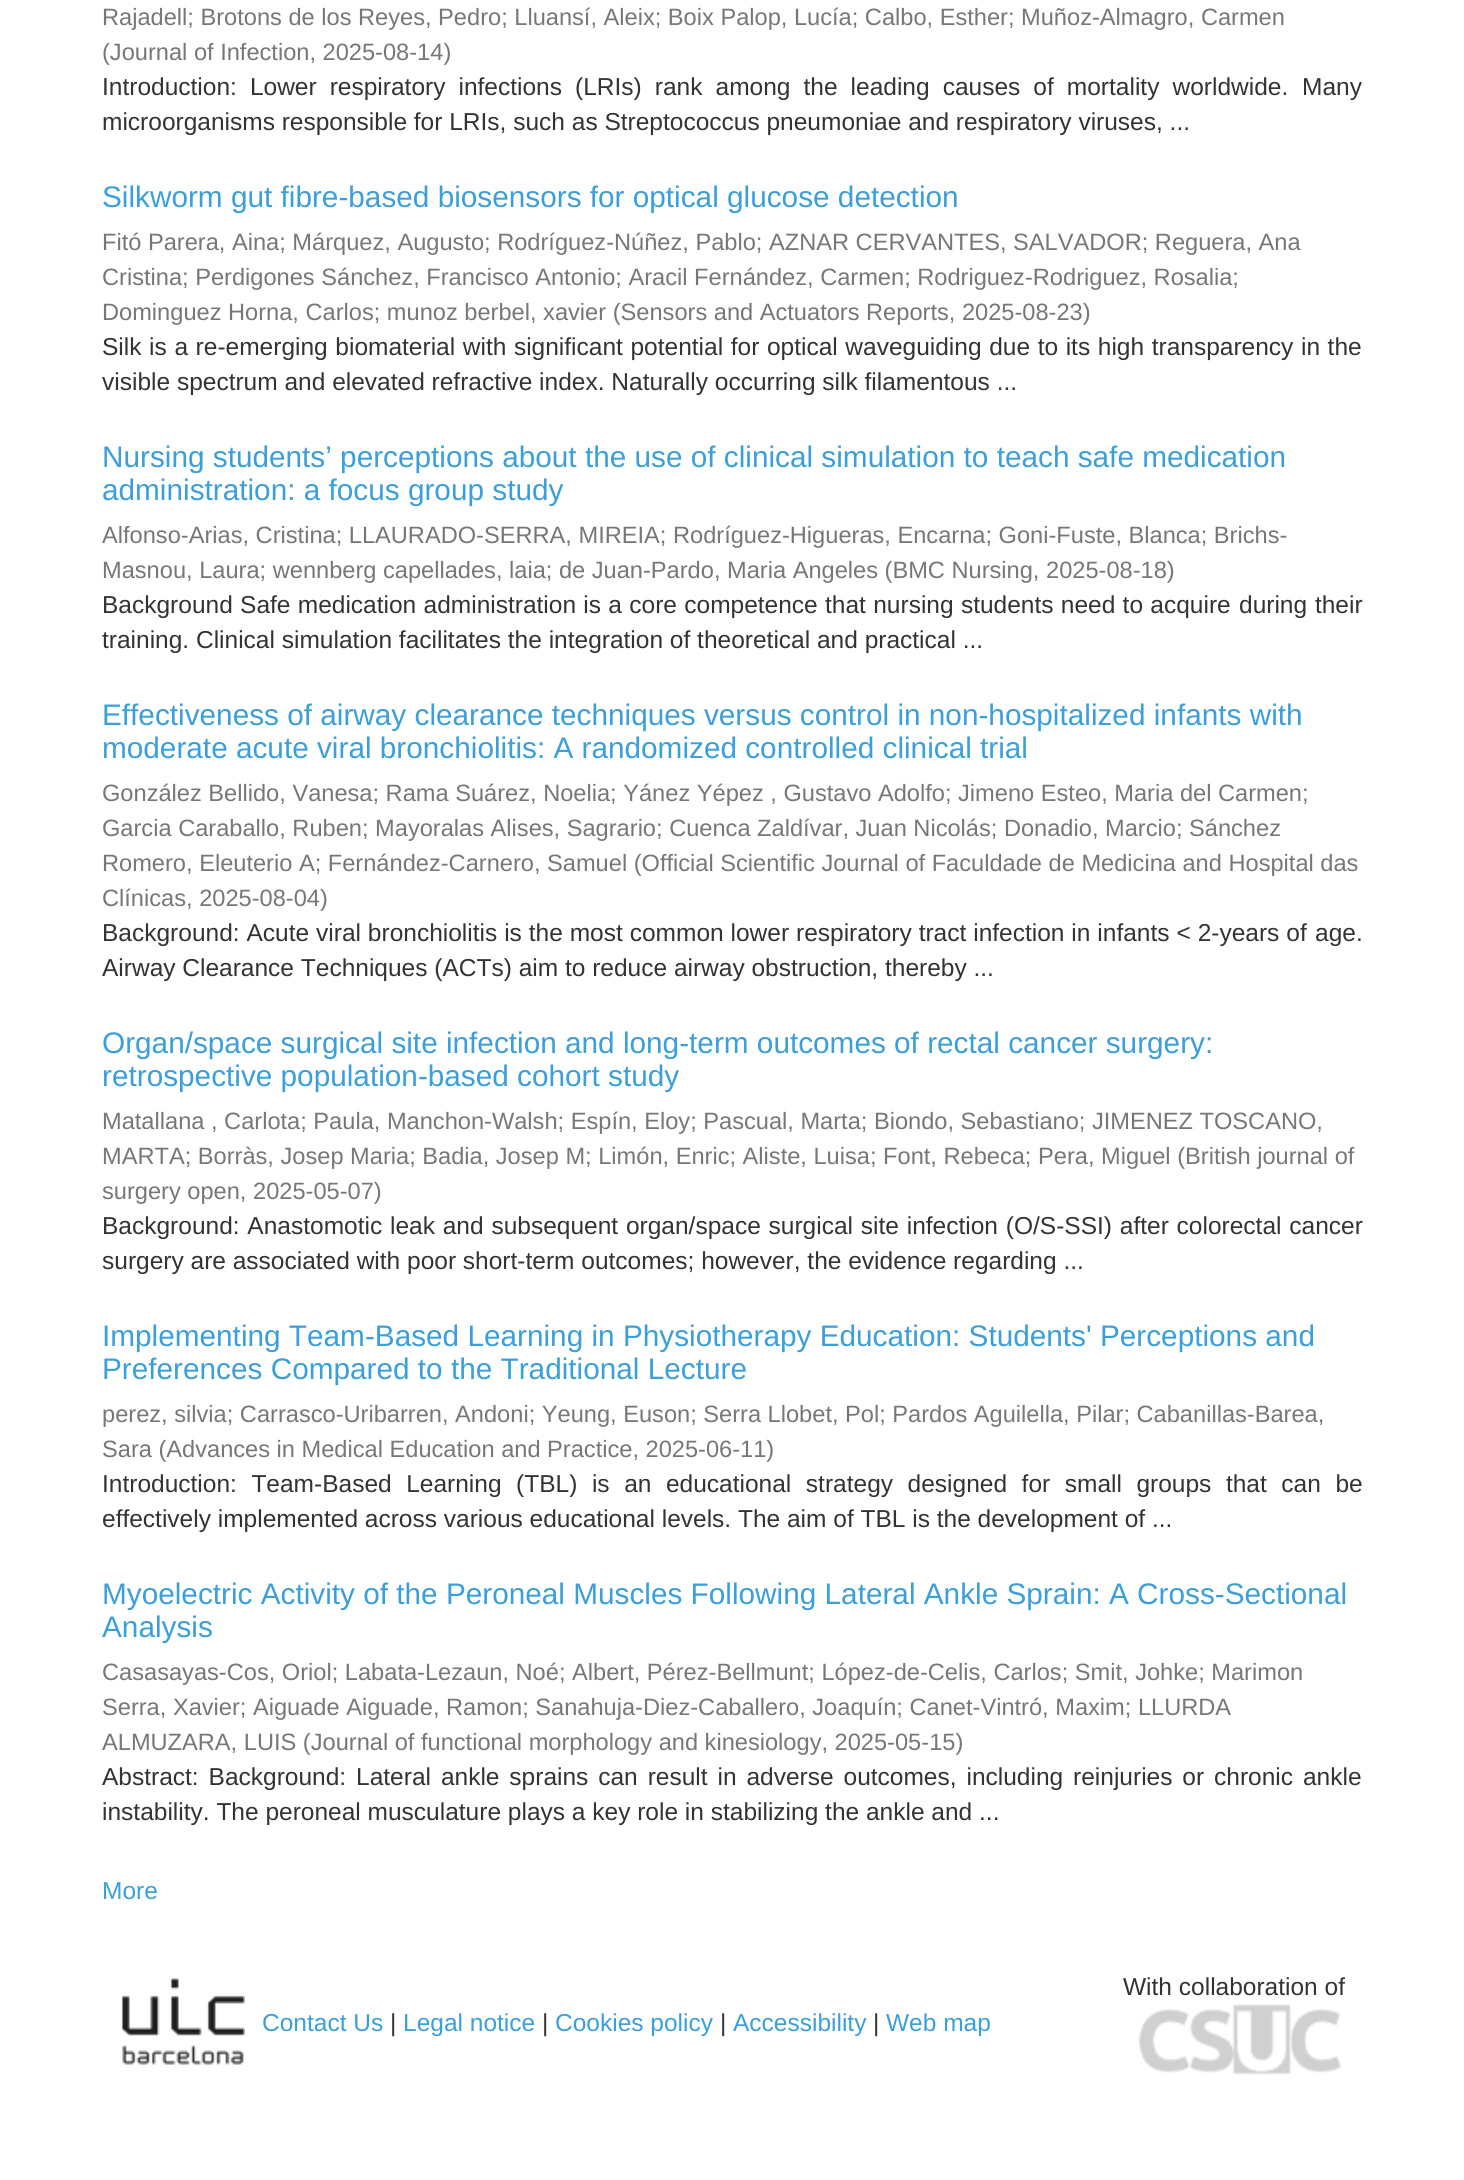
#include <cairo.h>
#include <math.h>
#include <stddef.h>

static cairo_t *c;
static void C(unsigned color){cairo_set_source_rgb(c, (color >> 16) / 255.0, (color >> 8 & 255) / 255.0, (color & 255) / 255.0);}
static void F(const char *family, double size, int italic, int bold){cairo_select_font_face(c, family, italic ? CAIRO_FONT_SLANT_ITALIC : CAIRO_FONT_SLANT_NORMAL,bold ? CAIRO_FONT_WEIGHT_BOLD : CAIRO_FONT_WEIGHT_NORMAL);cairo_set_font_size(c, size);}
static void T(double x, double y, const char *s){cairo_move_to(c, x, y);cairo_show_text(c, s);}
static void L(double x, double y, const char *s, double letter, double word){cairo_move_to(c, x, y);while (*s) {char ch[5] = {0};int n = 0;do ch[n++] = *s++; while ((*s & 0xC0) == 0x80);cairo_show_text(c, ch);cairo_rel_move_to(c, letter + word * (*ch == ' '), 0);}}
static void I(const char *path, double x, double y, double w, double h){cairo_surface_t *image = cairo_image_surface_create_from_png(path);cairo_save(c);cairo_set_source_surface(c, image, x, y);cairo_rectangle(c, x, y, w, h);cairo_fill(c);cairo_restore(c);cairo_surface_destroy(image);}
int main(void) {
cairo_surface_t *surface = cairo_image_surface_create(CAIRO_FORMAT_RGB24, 1464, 2180);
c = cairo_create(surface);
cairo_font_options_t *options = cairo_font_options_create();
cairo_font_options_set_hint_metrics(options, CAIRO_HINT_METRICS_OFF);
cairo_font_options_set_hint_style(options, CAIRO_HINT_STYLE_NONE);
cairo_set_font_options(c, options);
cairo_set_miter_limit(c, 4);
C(0xffffff);
cairo_paint(c);
F("Liberation Sans",23.62,0,0);
C(0x777777);
T(102,25,"Rajadell; Brotons de los Reyes, Pedro; Lluansí, Aleix; Boix Palop, Lucía; Calbo, Esther; Muñoz-Almagro, Carmen");
T(102,60,"(Journal of Infection, 2025-08-14)");
F("Liberation Sans",24.5,0,0);
C(0x333333);
L(102,95,"Introduction: Lower respiratory infections (LRIs) rank among the leading causes of mortality worldwide.",0,6.25);
T(1302,95,"Many");
T(102,130,"microorganisms responsible for LRIs, such as Streptococcus pneumoniae and respiratory viruses, ...");
F("Liberation Sans",29.75,0,0);
C(0x3a9fda);
T(102,207,"Silkworm gut fibre-based biosensors for optical glucose detection");
F("Liberation Sans",23.62,0,0);
C(0x777777);
T(102,250,"Fitó Parera, Aina; Márquez, Augusto; Rodríguez-Núñez, Pablo; AZNAR CERVANTES, SALVADOR; Reguera, Ana");
T(102,285,"Cristina; Perdigones Sánchez, Francisco Antonio; Aracil Fernández, Carmen; Rodriguez-Rodriguez, Rosalia;");
T(102,320,"Dominguez Horna, Carlos; munoz berbel, xavier (Sensors and Actuators Reports, 2025-08-23)");
F("Liberation Sans",24.5,0,0);
C(0x333333);
L(102,355,"Silk is a re-emerging biomaterial with significant potential for optical waveguiding due to its high transparency in the",0,.8);
T(102,390,"visible spectrum and elevated refractive index. Naturally occurring silk filamentous ...");
F("Liberation Sans",29.75,0,0);
C(0x3a9fda);
T(102,467,"Nursing students’ perceptions about the use of clinical simulation to teach safe medication");
T(102,500,"administration: a focus group study");
F("Liberation Sans",23.62,0,0);
C(0x777777);
T(102,543,"Alfonso-Arias, Cristina; LLAURADO-SERRA, MIREIA; Rodríguez-Higueras, Encarna; Goni-Fuste, Blanca; Brichs-");
T(102,578,"Masnou, Laura; wennberg capellades, laia; de Juan-Pardo, Maria Angeles (BMC Nursing, 2025-08-18)");
F("Liberation Sans",24.5,0,0);
C(0x333333);
L(102,613,"Background Safe medication administration is a core competence that nursing students need to acquire",0,.5);
L(1239,613,"during their",0,1);
T(102,648,"training. Clinical simulation facilitates the integration of theoretical and practical ...");
F("Liberation Sans",29.75,0,0);
C(0x3a9fda);
T(102,725,"Effectiveness of airway clearance techniques versus control in non-hospitalized infants with");
T(102,758,"moderate acute viral bronchiolitis: A randomized controlled clinical trial");
F("Liberation Sans",23.62,0,0);
C(0x777777);
T(102,801,"González Bellido, Vanesa; Rama Suárez, Noelia; Yánez Yépez , Gustavo Adolfo; Jimeno Esteo, Maria del Carmen;");
T(102,836,"Garcia Caraballo, Ruben; Mayoralas Alises, Sagrario; Cuenca Zaldívar, Juan Nicolás; Donadio, Marcio; Sánchez");
T(102,871,"Romero, Eleuterio A; Fernández-Carnero, Samuel (Official Scientific Journal of Faculdade de Medicina and Hospital das");
T(102,906,"Clínicas, 2025-08-04)");
F("Liberation Sans",24.5,0,0);
C(0x333333);
L(102,941,"Background: Acute viral bronchiolitis is the most common lower respiratory tract infection in infants < 2-years of",0,.1);
T(1315,941,"age.");
T(102,976,"Airway Clearance Techniques (ACTs) aim to reduce airway obstruction, thereby ...");
F("Liberation Sans",29.75,0,0);
C(0x3a9fda);
T(102,1053,"Organ/space surgical site infection and long-term outcomes of rectal cancer surgery:");
T(102,1086,"retrospective population-based cohort study");
F("Liberation Sans",23.62,0,0);
C(0x777777);
T(102,1129,"Matallana , Carlota; Paula, Manchon-Walsh; Espín, Eloy; Pascual, Marta; Biondo, Sebastiano; JIMENEZ TOSCANO,");
T(102,1164,"MARTA; Borràs, Josep Maria; Badia, Josep M; Limón, Enric; Aliste, Luisa; Font, Rebeca; Pera, Miguel (British journal of");
T(102,1199,"surgery open, 2025-05-07)");
F("Liberation Sans",24.5,0,0);
C(0x333333);
L(102,1234,"Background: Anastomotic leak and subsequent organ/space surgical site infection (O/S-SSI) after colorectal cancer",0,1);
T(102,1269,"surgery are associated with poor short-term outcomes; however, the evidence regarding ...");
F("Liberation Sans",29.75,0,0);
C(0x3a9fda);
T(102,1346,"Implementing Team-Based Learning in Physiotherapy Education: Students' Perceptions and");
T(102,1379,"Preferences Compared to the Traditional Lecture");
F("Liberation Sans",23.62,0,0);
C(0x777777);
T(102,1422,"perez, silvia; Carrasco-Uribarren, Andoni; Yeung, Euson; Serra Llobet, Pol; Pardos Aguilella, Pilar; Cabanillas-Barea,");
T(102,1457,"Sara (Advances in Medical Education and Practice, 2025-06-11)");
F("Liberation Sans",24.5,0,0);
C(0x333333);
L(102,1492,"Introduction: Team-Based Learning (TBL) is an educational strategy designed for small groups that can be",0,7.75);
T(102,1527,"effectively implemented across various educational levels. The aim of TBL is the development of ...");
F("Liberation Sans",29.75,0,0);
C(0x3a9fda);
T(102,1604,"Myoelectric Activity of the Peroneal Muscles Following Lateral Ankle Sprain: A Cross-Sectional");
T(102,1637,"Analysis");
F("Liberation Sans",23.62,0,0);
C(0x777777);
T(102,1680,"Casasayas-Cos, Oriol; Labata-Lezaun, Noé; Albert, Pérez-Bellmunt; López-de-Celis, Carlos; Smit, Johke; Marimon");
T(102,1715,"Serra, Xavier; Aiguade Aiguade, Ramon; Sanahuja-Diez-Caballero, Joaquín; Canet-Vintró, Maxim; LLURDA");
T(102,1750,"ALMUZARA, LUIS (Journal of functional morphology and kinesiology, 2025-05-15)");
F("Liberation Sans",24.5,0,0);
C(0x333333);
L(102,1785,"Abstract: Background: Lateral ankle sprains can result in adverse outcomes, including reinjuries or chronic ankle",0,3.1);
T(102,1820,"instability. The peroneal musculature plays a key role in stabilizing the ankle and ...");
C(0x3a9fda);
T(102,1899,"More");
C(0x333333);
T(1123,1995,"With collaboration of");
I("1.png",1138,2004,204,71);
I("2.png",121,1978,124,87);
C(0x3a9fda);
T(262,2031,"Contact Us");
C(0x333333);
T(390,2031,"|");
C(0x3a9fda);
T(403,2031,"Legal notice");
C(0x333333);
T(542,2031,"|");
C(0x3a9fda);
T(555,2031,"Cookies policy");
C(0x333333);
T(720,2031,"|");
C(0x3a9fda);
T(733,2031,"Accessibility");
C(0x333333);
T(873,2031,"|");
C(0x3a9fda);
T(886,2031,"Web map");
cairo_surface_write_to_png(surface, "o.png");
cairo_font_options_destroy(options);
cairo_destroy(c);
cairo_surface_destroy(surface);
return 0;
}
